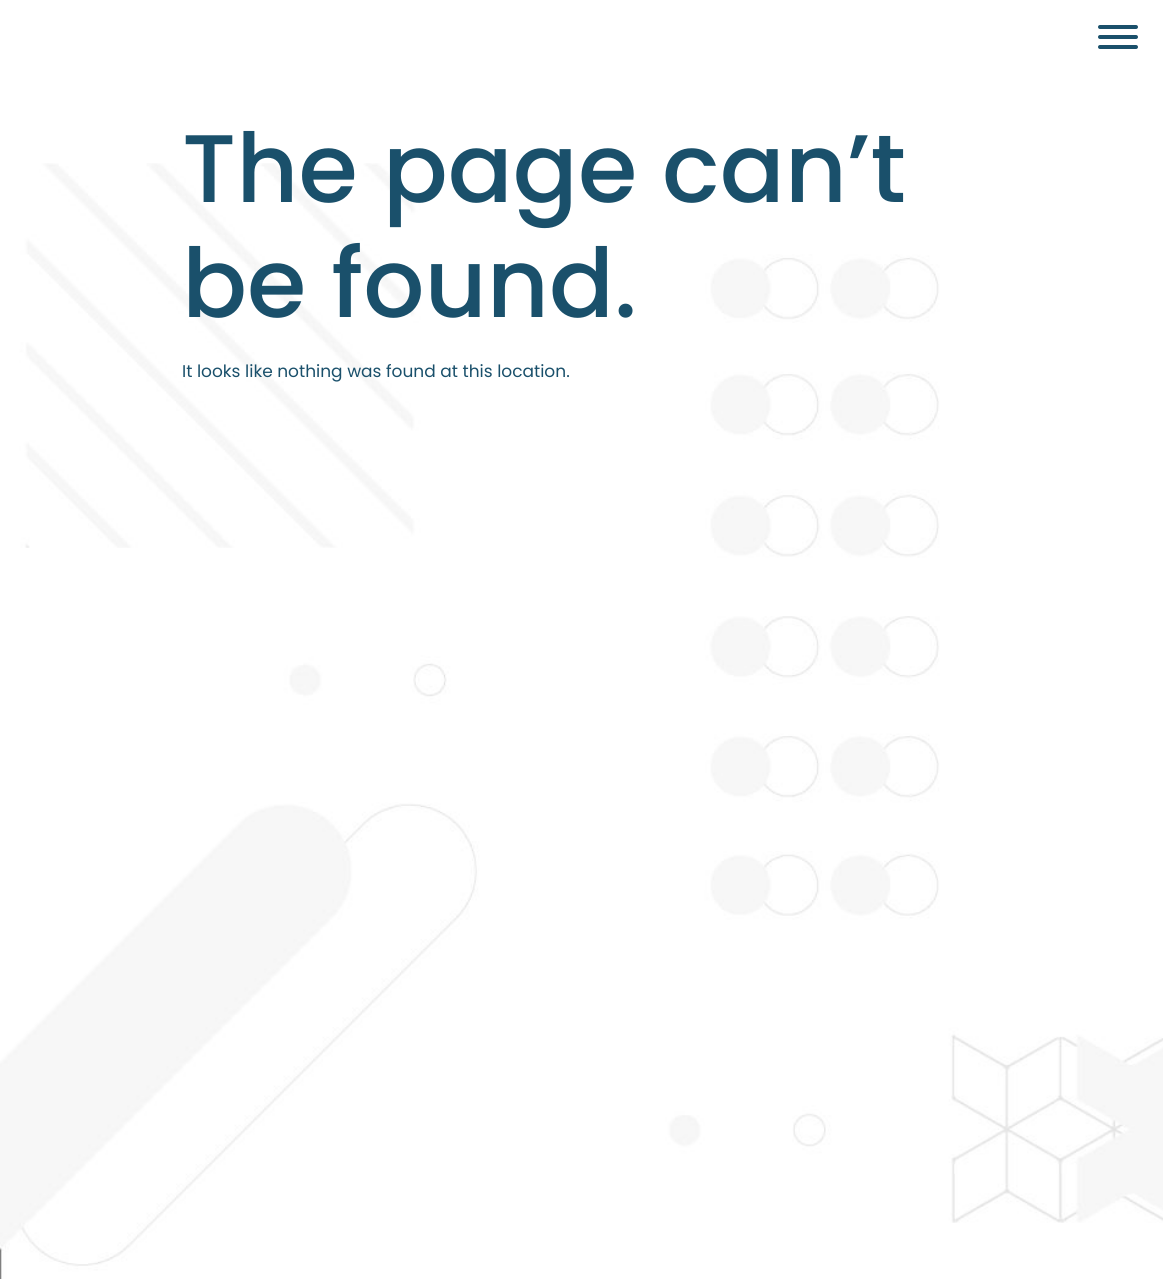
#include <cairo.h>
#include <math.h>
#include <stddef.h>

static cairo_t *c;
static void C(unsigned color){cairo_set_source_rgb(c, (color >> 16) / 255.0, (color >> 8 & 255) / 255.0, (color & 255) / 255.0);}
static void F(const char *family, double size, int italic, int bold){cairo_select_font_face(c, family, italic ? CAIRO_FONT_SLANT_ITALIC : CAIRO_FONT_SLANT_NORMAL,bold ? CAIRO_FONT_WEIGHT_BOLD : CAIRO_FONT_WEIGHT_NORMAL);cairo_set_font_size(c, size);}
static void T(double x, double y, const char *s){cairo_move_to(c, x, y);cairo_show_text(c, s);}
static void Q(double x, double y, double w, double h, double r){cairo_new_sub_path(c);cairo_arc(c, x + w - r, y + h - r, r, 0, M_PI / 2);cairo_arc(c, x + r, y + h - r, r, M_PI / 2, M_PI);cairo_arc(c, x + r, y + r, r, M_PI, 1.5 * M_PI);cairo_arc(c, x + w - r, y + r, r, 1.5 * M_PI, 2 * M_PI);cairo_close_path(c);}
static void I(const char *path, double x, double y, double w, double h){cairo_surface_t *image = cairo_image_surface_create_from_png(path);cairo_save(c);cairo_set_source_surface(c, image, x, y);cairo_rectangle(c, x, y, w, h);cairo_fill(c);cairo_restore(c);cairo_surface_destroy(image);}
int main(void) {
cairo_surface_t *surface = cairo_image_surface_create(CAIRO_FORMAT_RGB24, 1163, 1279);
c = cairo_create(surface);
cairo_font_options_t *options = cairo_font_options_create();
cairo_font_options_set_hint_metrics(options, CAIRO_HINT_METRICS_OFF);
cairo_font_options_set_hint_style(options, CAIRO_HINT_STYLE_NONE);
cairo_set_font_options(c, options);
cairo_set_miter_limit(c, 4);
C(0xffffff);
cairo_paint(c);
I("1.png",0,163,1163,1116);
C(0x1a506b);
Q(1098,35,40,4,2);
cairo_fill(c);
Q(1098,25,40,4,2);
cairo_fill(c);
Q(1098,45,40,4,2);
cairo_fill(c);
F("Poppins Medium",96,0,0);
T(182,202,"The page can’t");
T(182,317,"be found.");
F("Poppins",17,0,0);
T(182,377,"It looks like nothing was found at this location.");
cairo_surface_write_to_png(surface, "o.png");
cairo_font_options_destroy(options);
cairo_destroy(c);
cairo_surface_destroy(surface);
return 0;
}
